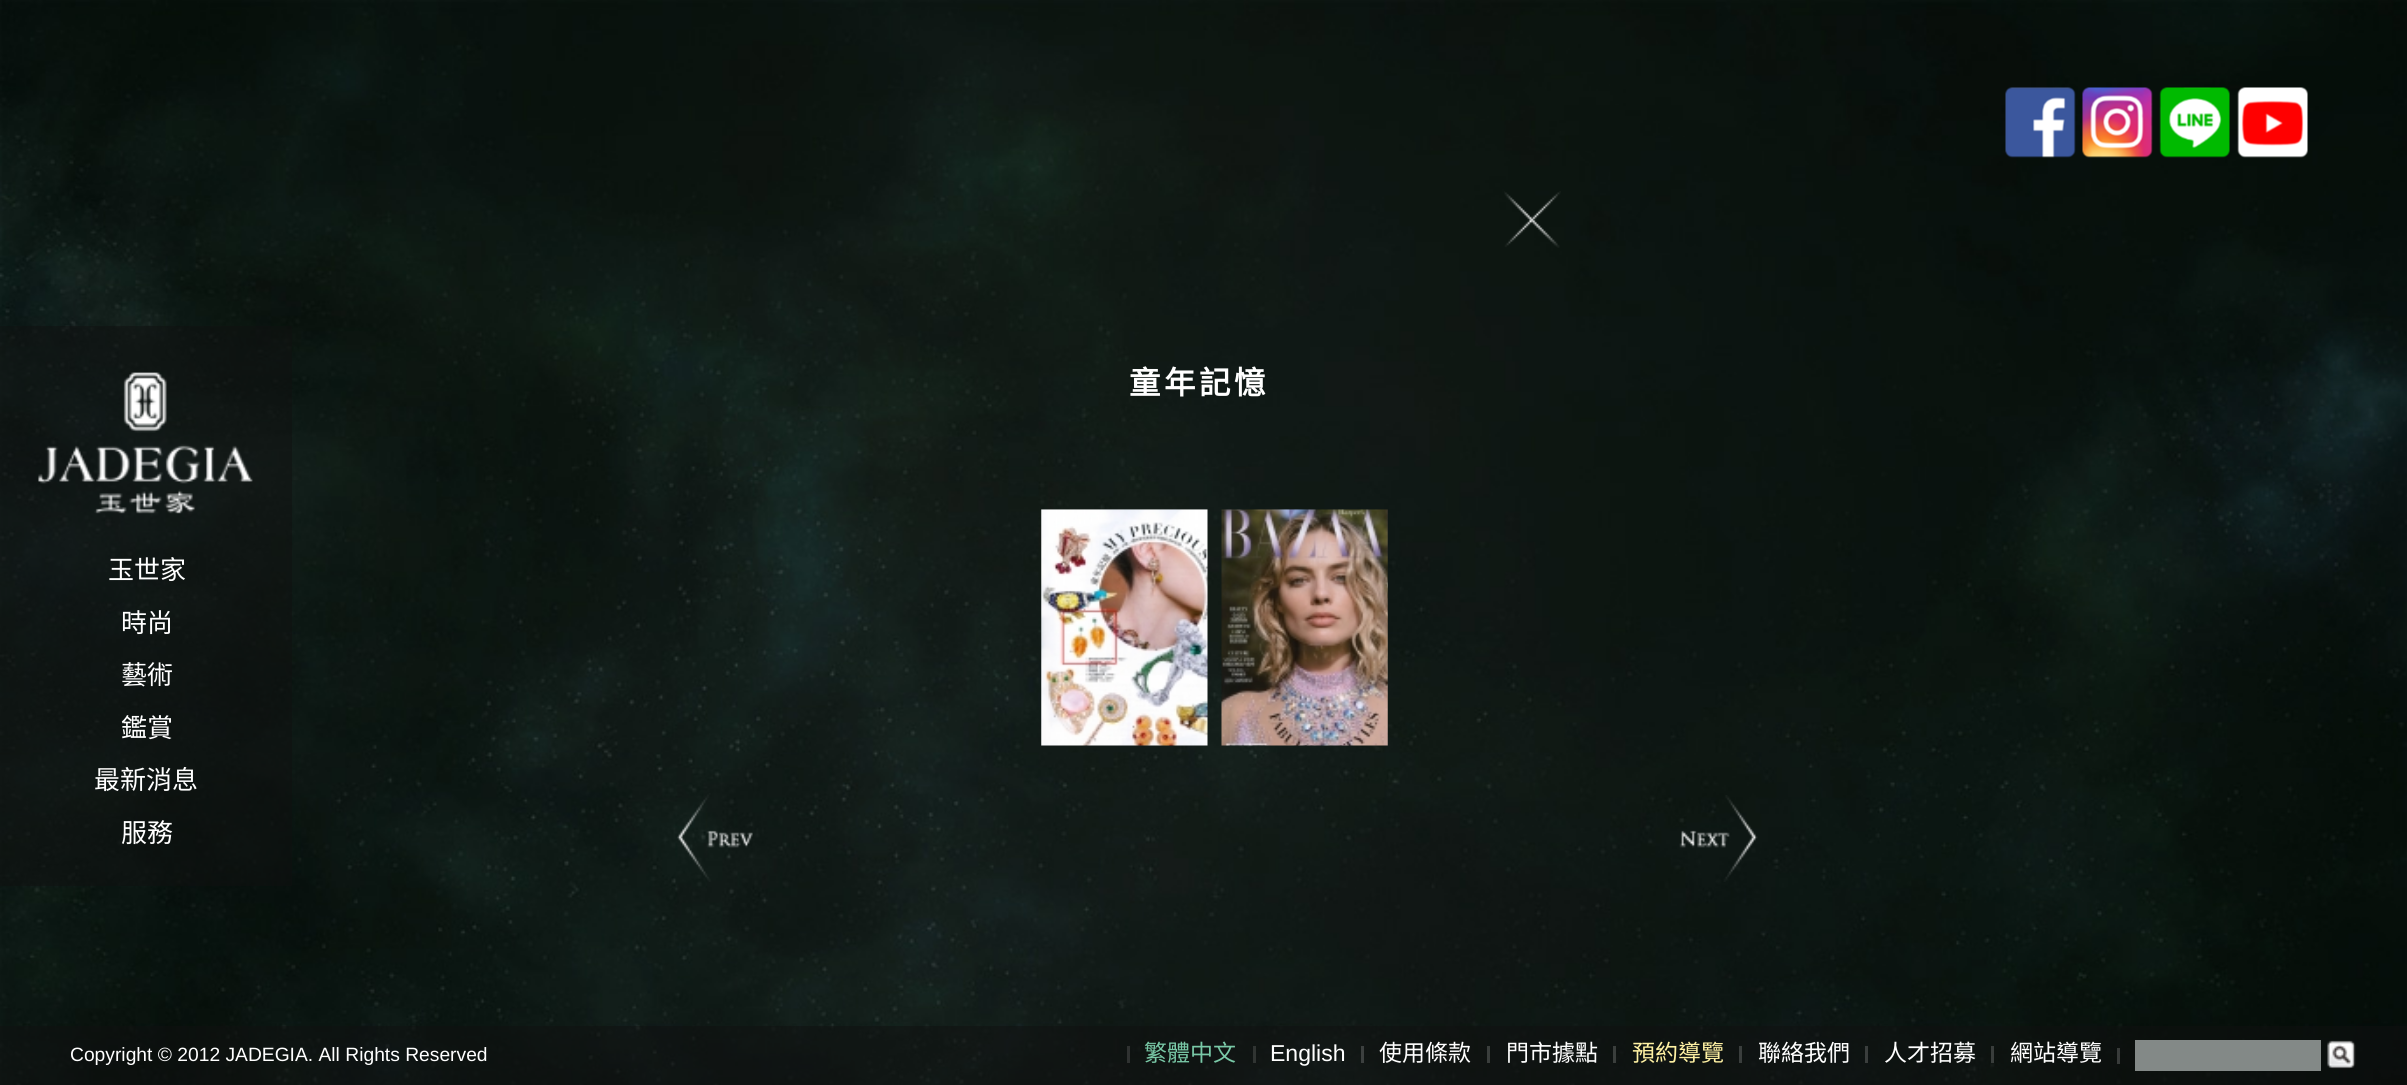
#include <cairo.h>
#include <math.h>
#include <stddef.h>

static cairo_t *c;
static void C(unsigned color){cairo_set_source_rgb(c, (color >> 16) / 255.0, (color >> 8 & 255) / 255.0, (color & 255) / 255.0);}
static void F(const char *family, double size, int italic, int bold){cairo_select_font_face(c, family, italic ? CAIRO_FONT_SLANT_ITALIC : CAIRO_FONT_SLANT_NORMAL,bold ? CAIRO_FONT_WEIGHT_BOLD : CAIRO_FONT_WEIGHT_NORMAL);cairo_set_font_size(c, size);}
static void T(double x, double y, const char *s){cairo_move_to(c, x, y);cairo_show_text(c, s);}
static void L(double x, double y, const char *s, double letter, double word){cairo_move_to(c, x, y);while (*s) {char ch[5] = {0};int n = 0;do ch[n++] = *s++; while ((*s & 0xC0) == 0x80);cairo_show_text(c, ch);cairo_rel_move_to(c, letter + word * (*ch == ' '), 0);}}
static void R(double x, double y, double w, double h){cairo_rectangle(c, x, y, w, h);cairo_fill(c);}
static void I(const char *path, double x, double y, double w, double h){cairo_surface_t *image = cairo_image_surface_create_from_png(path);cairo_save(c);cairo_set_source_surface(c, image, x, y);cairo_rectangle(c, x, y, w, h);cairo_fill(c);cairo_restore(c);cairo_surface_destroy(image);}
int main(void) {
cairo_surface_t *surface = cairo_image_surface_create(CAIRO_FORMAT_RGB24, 2407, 1085);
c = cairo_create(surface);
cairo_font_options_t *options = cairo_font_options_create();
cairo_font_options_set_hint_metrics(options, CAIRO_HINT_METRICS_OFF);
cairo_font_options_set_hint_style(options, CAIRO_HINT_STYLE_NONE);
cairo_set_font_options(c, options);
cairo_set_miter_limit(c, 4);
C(0xffffff);
cairo_paint(c);
I("1.png",0,0,2407,1085);
I("2.png",2005,87,71,71);
I("3.png",2082,87,71,71);
I("4.png",2159,87,71,71);
I("5.png",2237,87,71,71);
I("6.png",1504,191,57,57);
F("Noto Sans CJK TC",31.5,0,1);
C(0xffffff);
L(1129,394,"童年記憶",3.5,0);
I("7.png",1041,509,167,237);
I("8.png",1221,509,167,237);
I("9.png",677,793,76,89);
I("10.png",1679,795,79,87);
cairo_set_source_rgba(c,0.063,0.063,0.063,0.5);
R(0,326,292,560);
I("11.png",38,372,215,142);
F("Noto Sans CJK TC",26,0,0);
C(0xffffff);
T(108,579,"玉世家");
T(121,632,"時尚");
T(121,684,"藝術");
T(121,737,"鑑賞");
T(94,789,"最新消息");
T(121,842,"服務");
cairo_set_source_rgba(c,0.063,0.063,0.063,0.5);
R(0,1026,2407,59);
F("Liberation Sans",19.25,0,0);
C(0xffffff);
T(70,1061,"Copyright © 2012 JADEGIA. All Rights Reserved");
C(0x2f3231);
R(1127,1046,3,17);
F("Noto Sans CJK TC",23,0,0);
C(0x79c9a7);
T(1144,1061,"繁體中文");
C(0x303432);
R(1253,1046,3,17);
F("Liberation Sans",23,0,0);
C(0xffffff);
T(1270,1061,"English");
C(0x3c403f);
R(1361,1046,3,17);
F("Noto Sans CJK TC",23,0,0);
C(0xffffff);
T(1379,1061,"使用條款");
C(0x3a3e3c);
R(1487,1046,3,17);
C(0xffffff);
T(1506,1061,"門市據點");
C(0x3a3e3c);
R(1613,1046,3,17);
C(0xfff1a3);
T(1632,1061,"預約導覽");
C(0x3a3e3d);
R(1739,1046,3,17);
C(0xffffff);
T(1758,1061,"聯絡我們");
C(0x3a3e3d);
R(1865,1046,3,17);
C(0xffffff);
T(1884,1061,"人才招募");
C(0x393d3b);
R(1991,1046,3,17);
C(0xffffff);
T(2010,1061,"網站導覽");
C(0x383b3a);
R(2117,1048,3,16);
C(0x838987);
R(2135,1040,186,31);
I("12.png",2327,1040,29,29);
cairo_surface_write_to_png(surface, "o.png");
cairo_font_options_destroy(options);
cairo_destroy(c);
cairo_surface_destroy(surface);
return 0;
}
